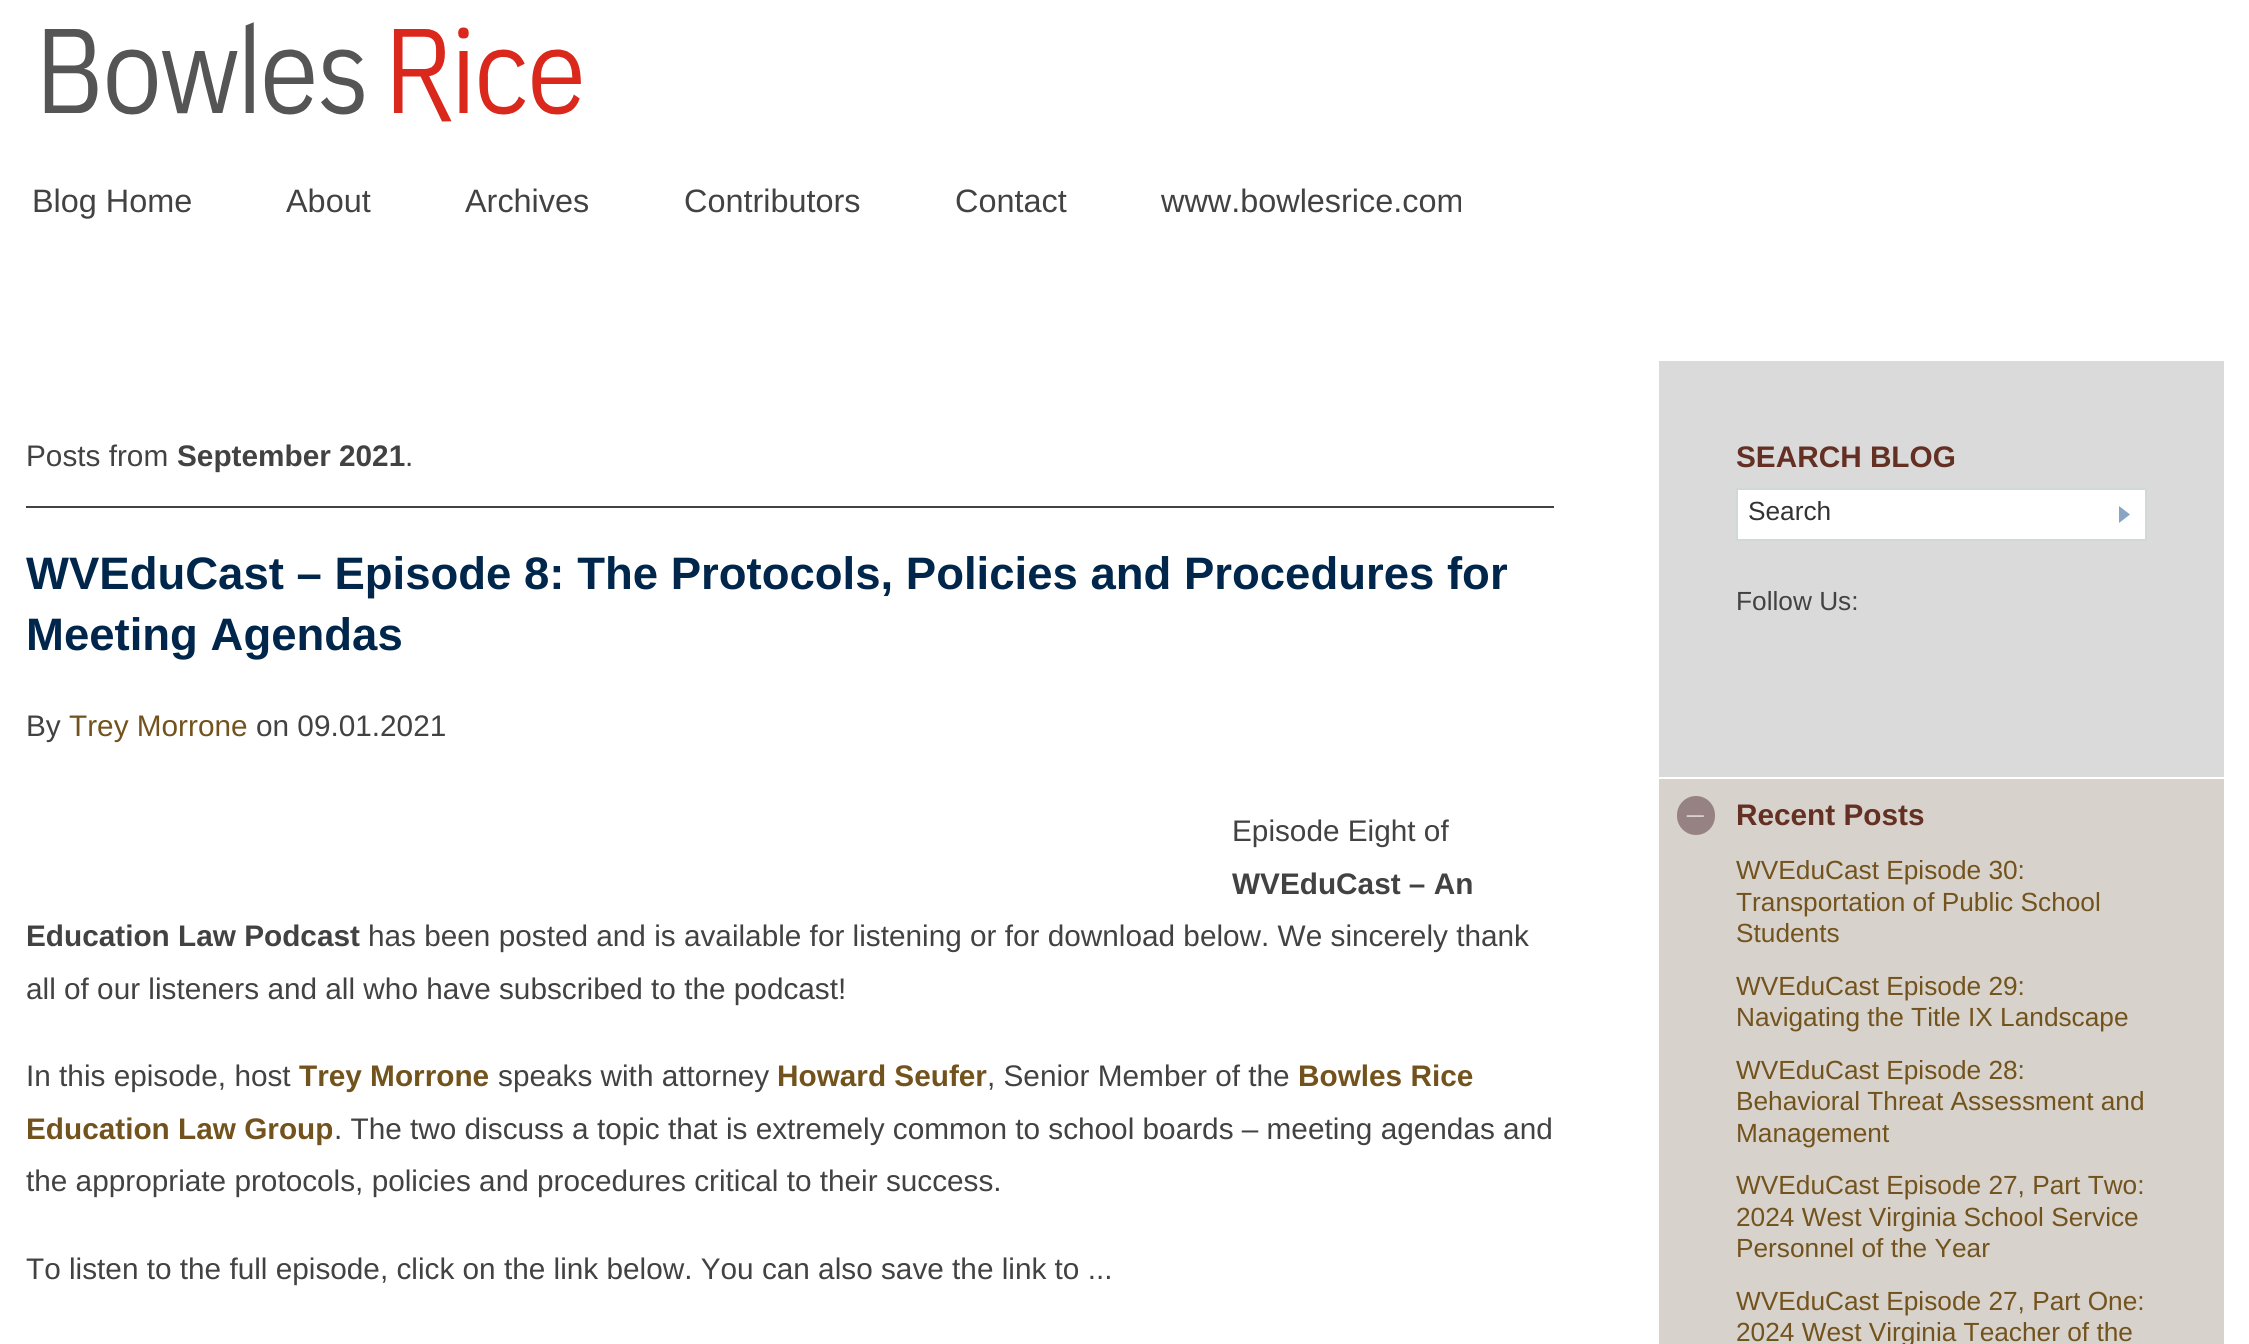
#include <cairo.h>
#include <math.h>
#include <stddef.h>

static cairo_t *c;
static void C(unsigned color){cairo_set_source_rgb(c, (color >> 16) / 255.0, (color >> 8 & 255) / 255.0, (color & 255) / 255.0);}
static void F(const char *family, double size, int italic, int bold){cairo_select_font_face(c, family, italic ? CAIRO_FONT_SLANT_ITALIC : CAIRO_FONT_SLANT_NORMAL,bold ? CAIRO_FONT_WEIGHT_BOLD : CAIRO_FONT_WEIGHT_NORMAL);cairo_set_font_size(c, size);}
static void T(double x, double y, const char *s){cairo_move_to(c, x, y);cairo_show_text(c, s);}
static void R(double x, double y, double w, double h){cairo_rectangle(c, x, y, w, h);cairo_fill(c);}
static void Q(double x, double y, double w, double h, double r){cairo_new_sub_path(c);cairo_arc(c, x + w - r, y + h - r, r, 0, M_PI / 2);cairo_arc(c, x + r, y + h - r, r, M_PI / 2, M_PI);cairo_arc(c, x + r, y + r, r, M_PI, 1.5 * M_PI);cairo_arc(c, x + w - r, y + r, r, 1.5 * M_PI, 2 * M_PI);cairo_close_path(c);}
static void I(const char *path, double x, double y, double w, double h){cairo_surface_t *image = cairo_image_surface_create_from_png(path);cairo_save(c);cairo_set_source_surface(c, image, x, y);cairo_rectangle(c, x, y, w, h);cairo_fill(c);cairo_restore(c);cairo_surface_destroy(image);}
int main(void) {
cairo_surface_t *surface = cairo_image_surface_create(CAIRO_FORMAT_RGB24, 2249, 1344);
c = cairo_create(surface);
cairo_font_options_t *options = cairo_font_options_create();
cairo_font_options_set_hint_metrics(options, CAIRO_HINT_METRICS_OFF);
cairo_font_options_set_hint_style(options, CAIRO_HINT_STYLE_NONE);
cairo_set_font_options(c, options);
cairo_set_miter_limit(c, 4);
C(0xffffff);
cairo_paint(c);
I("1.png",44,22,537,100);
F("Liberation Sans",32.4,0,0);
C(0x424242);
T(32,212,"Blog Home");
T(286,212,"About");
T(465,212,"Archives");
T(684,212,"Contributors");
T(955,212,"Contact");
T(1161,212,"www.bowlesrice.com");
R(26,506,1528,2);
F("Liberation Sans",29.75,0,0);
T(26,466,"Posts from");
F("Liberation Sans",29.75,0,1);
T(177,466,"September 2021");
F("Liberation Sans",29.75,0,0);
T(405,466,".");
F("Liberation Sans",45.5,0,1);
C(0x00264c);
T(26,589,"WVEduCast – Episode 8: The Protocols, Policies and Procedures for");
T(26,650,"Meeting Agendas");
F("Liberation Sans",29.75,0,0);
C(0x424242);
T(26,736,"By");
C(0x73531d);
T(69,736,"Trey Morrone");
C(0x424242);
T(256,736,"on 09.01.2021");
T(1232,841,"Episode Eight of");
F("Liberation Sans",29.75,0,1);
T(1232,894,"WVEduCast – An");
T(26,946,"Education Law Podcast");
F("Liberation Sans",29.75,0,0);
T(368,946,"has been posted and is available for listening or for download below. We sincerely thank");
T(26,999,"all of our listeners and all who have subscribed to the podcast!");
T(26,1086,"In this episode, host");
F("Liberation Sans",29.75,0,1);
C(0x73531d);
T(299,1086,"Trey Morrone");
F("Liberation Sans",29.75,0,0);
C(0x424242);
T(498,1086,"speaks with attorney");
F("Liberation Sans",29.75,0,1);
C(0x73531d);
T(777,1086,"Howard Seufer");
F("Liberation Sans",29.75,0,0);
C(0x424242);
T(987,1086,", Senior Member of the");
F("Liberation Sans",29.75,0,1);
C(0x73531d);
T(1298,1086,"Bowles Rice");
T(26,1139,"Education Law Group");
F("Liberation Sans",29.75,0,0);
C(0x424242);
T(334,1139,". The two discuss a topic that is extremely common to school boards – meeting agendas and");
T(26,1191,"the appropriate protocols, policies and procedures critical to their success.");
T(26,1279,"To listen to the full episode, click on the link below. You can also save the link to ...");
C(0xdadada);
R(1659,361,565,416);
F("Liberation Sans",29.75,0,1);
C(0x653024);
T(1736,467,"SEARCH BLOG");
C(0xffffff);
cairo_rectangle(c,1737,489,409,51);
cairo_fill_preserve(c);
C(0xd1d8d8);
cairo_stroke(c);
F("Liberation Sans",26.25,0,0);
C(0x333333);
T(1748,520,"Search");
C(0x88a6c4);
cairo_new_path(c);
cairo_move_to(c,2119,523);
cairo_line_to(c,2119,506);
cairo_line_to(c,2130,514.5);
cairo_close_path(c);
cairo_fill(c);
C(0x424242);
T(1736,610,"Follow Us:");
C(0xd7d2cb);
R(1659,779,565,565);
C(0x968283);
Q(1677,796,38,39,19);
cairo_fill(c);
F("Liberation Sans",29.75,0,1);
C(0xffffff);
T(1687,813,"_");
C(0x653024);
T(1736,825,"Recent Posts");
F("Liberation Sans",26.25,0,0);
C(0x73531d);
T(1736,879,"WVEduCast Episode 30:");
T(1736,911,"Transportation of Public School");
T(1736,942,"Students");
T(1736,995,"WVEduCast Episode 29:");
T(1736,1026,"Navigating the Title IX Landscape");
T(1736,1079,"WVEduCast Episode 28:");
T(1736,1110,"Behavioral Threat Assessment and");
T(1736,1142,"Management");
T(1736,1194,"WVEduCast Episode 27, Part Two:");
T(1736,1226,"2024 West Virginia School Service");
T(1736,1257,"Personnel of the Year");
T(1736,1310,"WVEduCast Episode 27, Part One:");
T(1736,1341,"2024 West Virginia Teacher of the");
cairo_surface_write_to_png(surface, "o.png");
cairo_font_options_destroy(options);
cairo_destroy(c);
cairo_surface_destroy(surface);
return 0;
}
